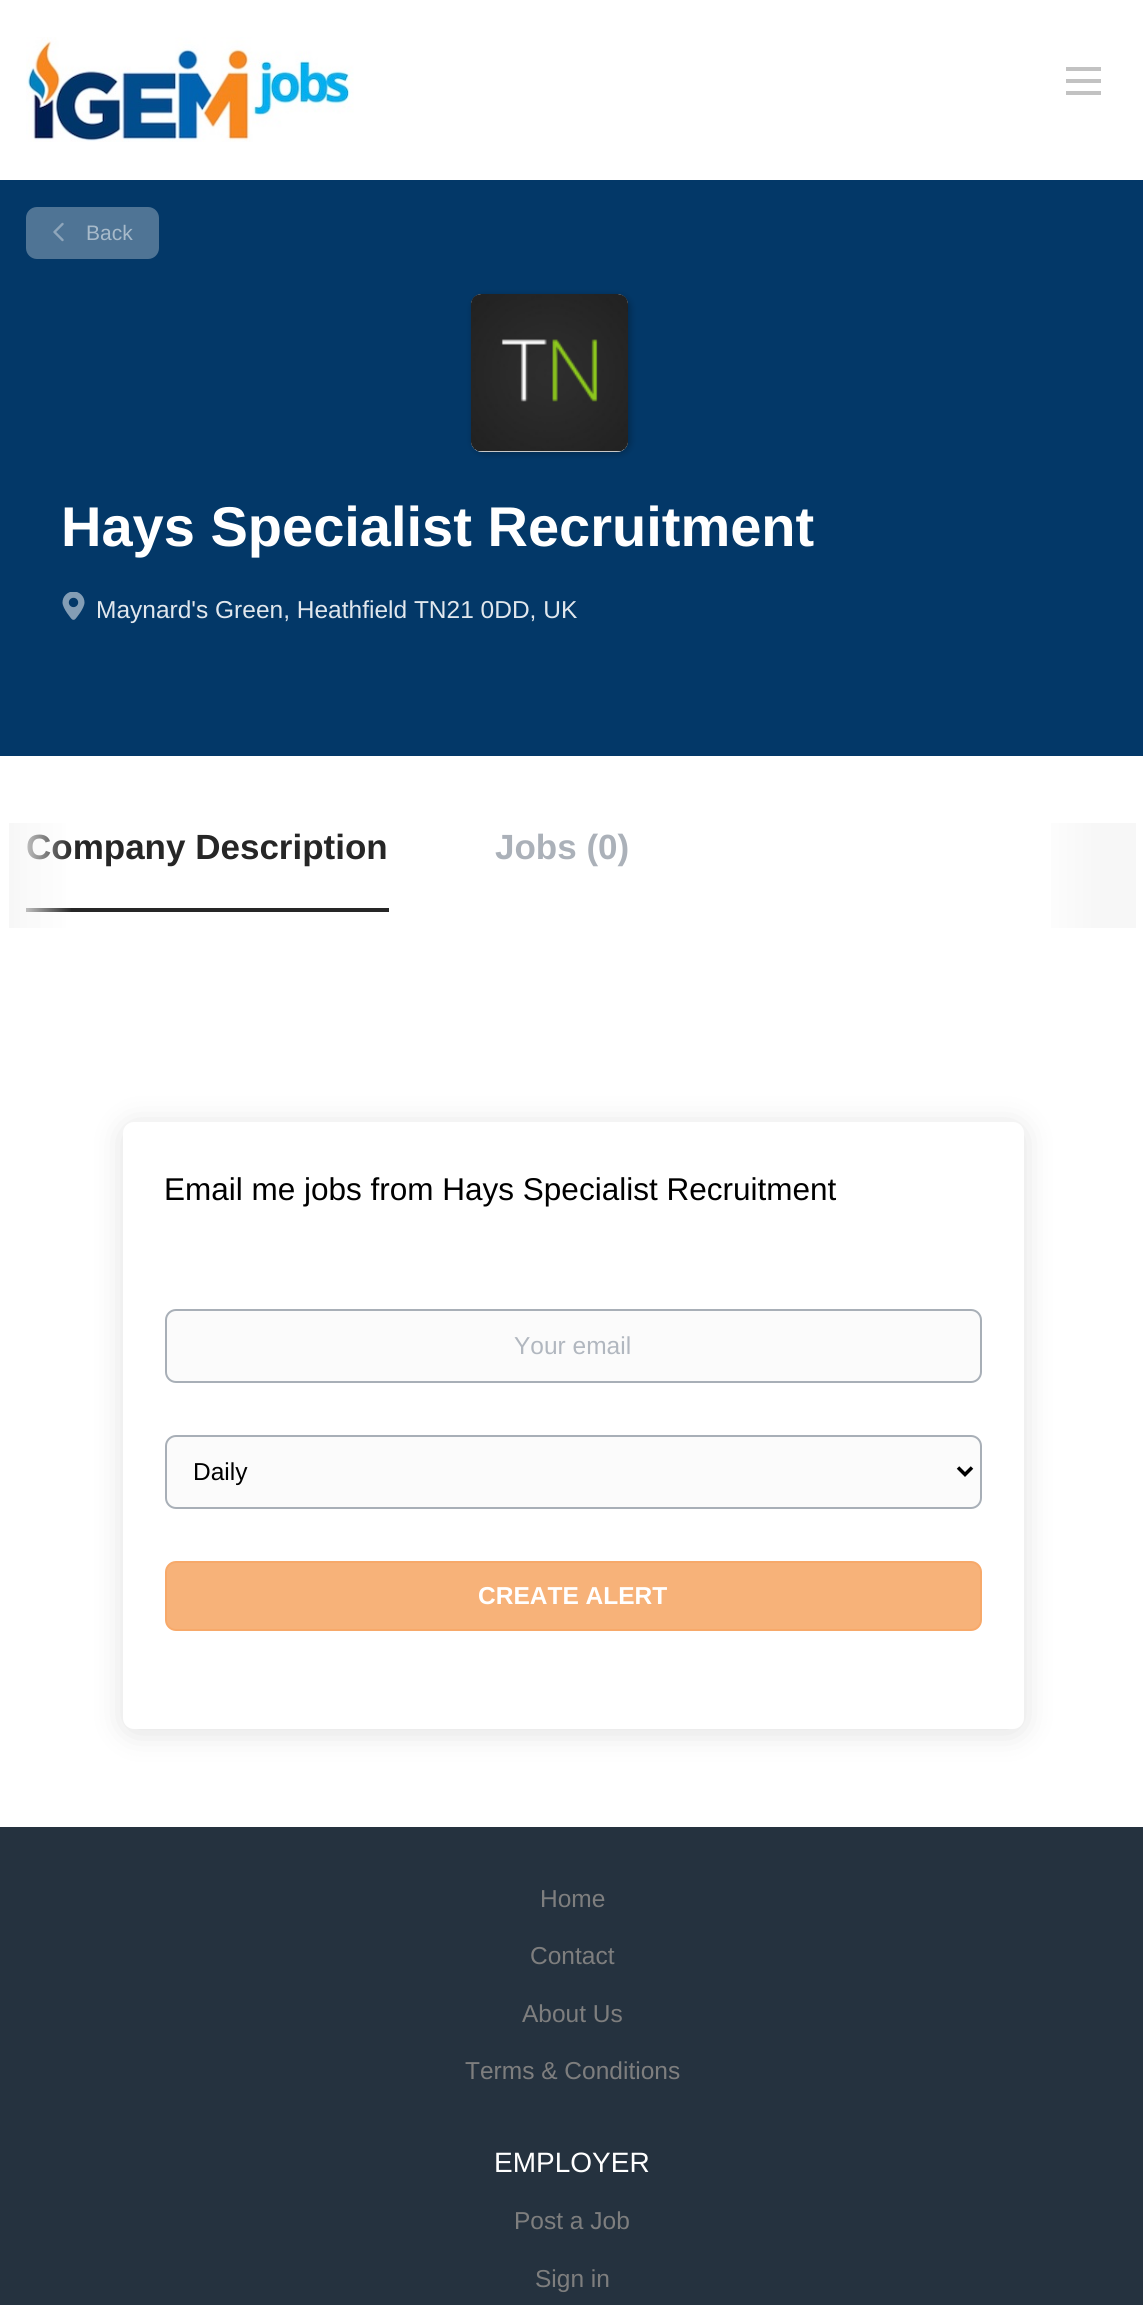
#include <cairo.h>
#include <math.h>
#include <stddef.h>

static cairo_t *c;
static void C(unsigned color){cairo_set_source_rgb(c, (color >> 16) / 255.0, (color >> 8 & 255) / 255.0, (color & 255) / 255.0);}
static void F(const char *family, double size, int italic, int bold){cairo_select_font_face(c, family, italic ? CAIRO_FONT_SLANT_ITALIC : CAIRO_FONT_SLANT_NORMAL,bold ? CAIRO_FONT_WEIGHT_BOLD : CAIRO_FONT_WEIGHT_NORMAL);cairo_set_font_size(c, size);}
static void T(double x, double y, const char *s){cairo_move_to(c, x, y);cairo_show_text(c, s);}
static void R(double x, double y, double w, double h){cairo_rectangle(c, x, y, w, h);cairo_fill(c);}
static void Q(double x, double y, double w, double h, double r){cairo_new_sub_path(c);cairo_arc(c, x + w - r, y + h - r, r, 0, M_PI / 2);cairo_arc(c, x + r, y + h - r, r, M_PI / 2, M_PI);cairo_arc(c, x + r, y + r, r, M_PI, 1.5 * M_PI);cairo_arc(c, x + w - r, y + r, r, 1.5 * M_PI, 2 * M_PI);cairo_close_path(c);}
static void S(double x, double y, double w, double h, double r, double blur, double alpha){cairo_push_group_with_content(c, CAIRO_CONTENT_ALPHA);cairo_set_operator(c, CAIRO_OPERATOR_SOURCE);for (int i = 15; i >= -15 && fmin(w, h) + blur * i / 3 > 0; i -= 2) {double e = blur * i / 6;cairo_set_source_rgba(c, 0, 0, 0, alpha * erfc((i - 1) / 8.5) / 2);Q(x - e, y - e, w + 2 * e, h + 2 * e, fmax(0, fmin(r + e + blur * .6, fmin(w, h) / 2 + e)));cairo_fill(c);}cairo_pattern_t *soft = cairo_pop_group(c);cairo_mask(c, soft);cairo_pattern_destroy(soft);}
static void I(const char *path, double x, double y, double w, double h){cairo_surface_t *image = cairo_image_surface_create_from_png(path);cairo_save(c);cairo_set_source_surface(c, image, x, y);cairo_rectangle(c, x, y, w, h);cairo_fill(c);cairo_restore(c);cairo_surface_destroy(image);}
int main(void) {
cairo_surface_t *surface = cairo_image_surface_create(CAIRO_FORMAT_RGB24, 1143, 2305);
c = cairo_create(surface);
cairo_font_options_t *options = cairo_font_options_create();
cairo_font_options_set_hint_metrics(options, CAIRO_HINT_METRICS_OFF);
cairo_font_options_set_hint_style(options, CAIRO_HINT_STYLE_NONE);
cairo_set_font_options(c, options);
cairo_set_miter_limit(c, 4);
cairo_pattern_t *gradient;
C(0xffffff);
cairo_paint(c);
I("1.png",26,37,328,105);
C(0xc2c2c2);
R(1066,79,35,4);
R(1066,67,35,4);
R(1066,91,35,4);
C(0x033868);
R(0,180,1143,576);
C(0x4f7495);
Q(26,207,133,52,11);
cairo_fill(c);
cairo_new_path(c);
cairo_move_to(c,62.5,224);
cairo_line_to(c,54.5,232);
cairo_line_to(c,62.5,240);
C(0x8fa6bb);
cairo_set_line_width(c,2.4);
cairo_set_line_cap(c,CAIRO_LINE_CAP_ROUND);
cairo_set_line_join(c,CAIRO_LINE_JOIN_ROUND);
cairo_stroke(c);
F("Liberation Sans",21,0,0);
C(0xa7baca);
T(86,240,"Back");
C(0x000000);
S(473,296,157,157,11,3.5,.3);
C(0xffffff);
Q(471,294,157,158,11);
cairo_fill(c);
I("2.png",470,294,158,158);
F("Liberation Sans",56,0,1);
T(61,546,"Hays Specialist Recruitment");
I("3.png",62,592,23,28);
F("Liberation Sans",24.5,0,0);
C(0xe1e7ed);
T(96,618,"Maynard's Green, Heathfield TN21 0DD, UK");
C(0x262626);
R(26,908,363,4);
F("Liberation Sans",35,0,1);
T(26,859,"Company Description");
gradient = cairo_pattern_create_linear(9,875,114,875);
cairo_pattern_add_color_stop_rgba(gradient,0,0.969,0.969,0.969,1);
cairo_pattern_add_color_stop_rgba(gradient,.6,0.969,0.969,0.969,0);
cairo_pattern_add_color_stop_rgba(gradient,1,0.969,0.969,0.969,0);
cairo_set_source(c,gradient);
cairo_pattern_destroy(gradient);
R(9,823,62,105);
gradient = cairo_pattern_create_linear(1031,875,1136,875);
cairo_pattern_add_color_stop_rgba(gradient,0,1,1,1,1);
cairo_pattern_add_color_stop_rgba(gradient,.6,0.969,0.969,0.969,1);
cairo_pattern_add_color_stop_rgba(gradient,1,0.969,0.969,0.969,1);
cairo_set_source(c,gradient);
cairo_pattern_destroy(gradient);
R(1051,823,85,105);
C(0xabb1b9);
T(495,859,"Jobs (0)");
C(0x000000);
S(123,1125,901,608,11,16,.12);
C(0xffffff);
Q(123,1122,901,607,11);
cairo_fill(c);
F("Liberation Sans",31.5,0,0);
C(0x000000);
T(164,1200,"Email me jobs from Hays Specialist Recruitment");
C(0xfbfbfb);
Q(166,1310,815,72,10);
cairo_fill_preserve(c);
C(0xa8afb7);
cairo_set_line_width(c,2);
cairo_set_line_cap(c,CAIRO_LINE_CAP_BUTT);
cairo_set_line_join(c,CAIRO_LINE_JOIN_MITER);
cairo_stroke(c);
F("Liberation Sans",24.5,0,0);
C(0xb1b7bf);
T(514,1354,"Your email");
C(0xfbfbfb);
Q(166,1436,815,72,10);
cairo_fill_preserve(c);
C(0xa8afb7);
cairo_stroke(c);
cairo_new_path(c);
cairo_move_to(c,958,1467.5);
cairo_line_to(c,965,1474.5);
cairo_line_to(c,972,1467.5);
C(0x000000);
cairo_set_line_width(c,3.5);
cairo_stroke(c);
T(193,1480,"Daily");
C(0xf7b279);
Q(166,1562,815,68,10);
cairo_fill_preserve(c);
C(0xf7a96a);
cairo_set_line_width(c,2);
cairo_stroke(c);
F("Liberation Sans",24.5,0,1);
C(0xffffff);
T(478,1604,"CREATE ALERT");
C(0x25323f);
R(0,1827,1143,478);
F("Liberation Sans",24.5,0,0);
C(0x7e7e7e);
T(540,1907,"Home");
T(530,1964,"Contact");
T(522,2022,"About Us");
T(465,2079,"Terms & Conditions");
F("Liberation Sans",28,0,0);
C(0xffffff);
T(494,2172,"EMPLOYER");
F("Liberation Sans",24.5,0,0);
C(0x7e7e7e);
T(514,2229,"Post a Job");
T(535,2287,"Sign in");
cairo_surface_write_to_png(surface, "o.png");
cairo_font_options_destroy(options);
cairo_destroy(c);
cairo_surface_destroy(surface);
return 0;
}
